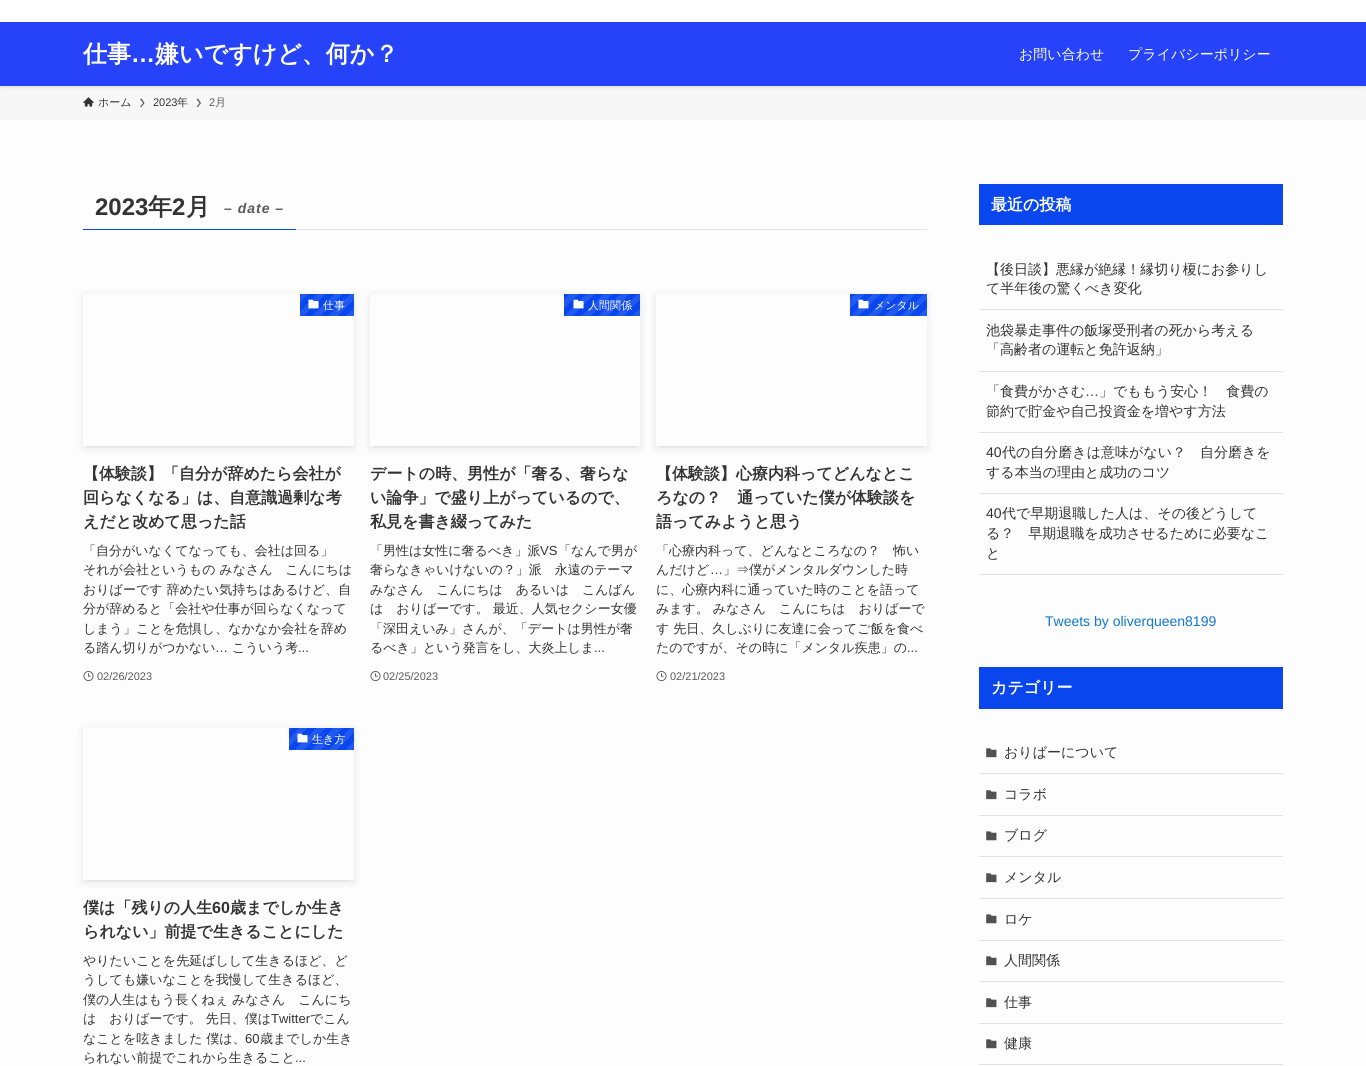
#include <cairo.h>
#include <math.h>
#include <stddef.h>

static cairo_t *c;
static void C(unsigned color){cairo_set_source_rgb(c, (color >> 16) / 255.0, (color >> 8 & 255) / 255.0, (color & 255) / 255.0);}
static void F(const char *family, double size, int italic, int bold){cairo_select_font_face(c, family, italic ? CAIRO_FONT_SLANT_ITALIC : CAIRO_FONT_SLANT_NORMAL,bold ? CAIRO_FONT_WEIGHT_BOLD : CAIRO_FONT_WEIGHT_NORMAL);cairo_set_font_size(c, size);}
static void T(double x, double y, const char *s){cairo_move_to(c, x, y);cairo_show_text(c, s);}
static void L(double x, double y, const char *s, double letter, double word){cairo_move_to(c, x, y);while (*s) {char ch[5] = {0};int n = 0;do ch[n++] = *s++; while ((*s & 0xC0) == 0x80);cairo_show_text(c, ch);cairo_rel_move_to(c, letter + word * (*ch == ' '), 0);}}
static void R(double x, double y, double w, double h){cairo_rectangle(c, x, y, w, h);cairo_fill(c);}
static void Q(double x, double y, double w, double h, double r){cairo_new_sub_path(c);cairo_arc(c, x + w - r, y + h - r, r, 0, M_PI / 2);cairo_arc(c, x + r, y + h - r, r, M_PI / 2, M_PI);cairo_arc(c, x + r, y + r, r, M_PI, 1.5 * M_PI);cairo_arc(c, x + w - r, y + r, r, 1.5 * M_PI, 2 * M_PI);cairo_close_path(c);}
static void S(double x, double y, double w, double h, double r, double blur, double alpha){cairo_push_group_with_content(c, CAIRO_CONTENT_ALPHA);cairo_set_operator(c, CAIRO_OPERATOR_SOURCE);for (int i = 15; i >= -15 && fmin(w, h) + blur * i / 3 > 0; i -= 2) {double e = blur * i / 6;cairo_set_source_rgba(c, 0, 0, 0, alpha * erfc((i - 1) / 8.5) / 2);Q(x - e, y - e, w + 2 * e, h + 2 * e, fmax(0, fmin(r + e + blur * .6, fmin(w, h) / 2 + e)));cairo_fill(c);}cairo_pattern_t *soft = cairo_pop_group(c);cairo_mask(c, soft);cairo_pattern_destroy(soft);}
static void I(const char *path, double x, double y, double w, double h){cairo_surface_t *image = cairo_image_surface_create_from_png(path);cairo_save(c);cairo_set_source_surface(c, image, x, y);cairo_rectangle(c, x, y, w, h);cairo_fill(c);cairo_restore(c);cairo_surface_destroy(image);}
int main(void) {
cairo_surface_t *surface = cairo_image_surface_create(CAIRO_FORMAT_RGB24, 1366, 1066);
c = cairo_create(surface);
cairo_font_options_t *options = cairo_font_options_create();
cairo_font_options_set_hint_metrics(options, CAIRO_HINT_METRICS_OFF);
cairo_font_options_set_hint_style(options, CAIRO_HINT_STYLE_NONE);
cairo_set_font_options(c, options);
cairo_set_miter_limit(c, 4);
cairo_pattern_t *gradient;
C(0xfdfdfd);
cairo_paint(c);
C(0xf7f7f7);
R(0,86,1366,34);
C(0x000000);
S(0,1,1366,86,0,2,.12);
C(0x2743f9);
R(0,22,1366,64);
C(0xffffff);
R(0,0,1366,22);
F("WenQuanYi Zen Hei",24,0,1);
T(83,62,"仕事");
F("Liberation Sans",24,0,1);
T(131,62,"…");
F("WenQuanYi Zen Hei",24,0,1);
T(155,62,"嫌いですけど、何か？");
F("WenQuanYi Zen Hei Medium",14,0,0);
T(1019,59,"お問い合わせ");
T(1128,59,"プライバシーポリシー");
I("1.png",83,97,11,10);
F("WenQuanYi Zen Hei Medium",11,0,0);
C(0x333333);
T(98,106,"ホーム");
C(0x5a5a5a);
cairo_new_path(c);
cairo_move_to(c,141.5,98.5);
cairo_line_to(c,140,99);
cairo_line_to(c,143,103);
cairo_line_to(c,140,107);
cairo_line_to(c,141.5,107);
cairo_line_to(c,144.5,103);
cairo_close_path(c);
cairo_fill(c);
F("Liberation Sans",11,0,0);
C(0x333333);
T(153,106,"2023");
F("WenQuanYi Zen Hei Medium",11,0,0);
T(177,106,"年");
C(0x5a5a5a);
cairo_new_path(c);
cairo_move_to(c,198,98.5);
cairo_line_to(c,196.5,99);
cairo_line_to(c,199.5,103);
cairo_line_to(c,196.5,107);
cairo_line_to(c,198,107);
cairo_line_to(c,201,103);
cairo_close_path(c);
cairo_fill(c);
F("Liberation Sans",11,0,0);
T(209,106,"2");
F("WenQuanYi Zen Hei Medium",11,0,0);
T(215,106,"月");
C(0xe2e2e2);
R(296,229,631,1);
C(0x0946ed);
R(83,229,213,1);
F("Liberation Sans",24,0,1);
C(0x333333);
T(95,215,"2023");
F("WenQuanYi Zen Hei",24,0,1);
T(148,215,"年");
F("Liberation Sans",24,0,1);
T(172,215,"2");
F("WenQuanYi Zen Hei",24,0,1);
T(186,215,"月");
F("Liberation Sans",14,1,1);
C(0x5a5a5a);
L(224,213,"– date –",1,0);
cairo_save(c);
cairo_rectangle(c,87,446,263,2);
cairo_clip(c);
C(0x000000);
S(87,302,263,144,0,2,.1);
cairo_restore(c);
cairo_save(c);
cairo_set_fill_rule(c,CAIRO_FILL_RULE_EVEN_ODD);
cairo_new_path(c);
cairo_move_to(c,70,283);
cairo_line_to(c,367,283);
cairo_line_to(c,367,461);
cairo_line_to(c,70,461);
cairo_close_path(c);
cairo_move_to(c,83,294);
cairo_line_to(c,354,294);
cairo_line_to(c,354,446);
cairo_line_to(c,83,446);
cairo_close_path(c);
cairo_clip(c);
C(0x000000);
S(83,296,271,152,0,4,.1);
cairo_restore(c);
gradient = cairo_pattern_create_linear(346,324,304,282);
cairo_pattern_add_color_stop_rgba(gradient,0,0.133,0.349,0.937,1);
cairo_pattern_add_color_stop_rgba(gradient,.1,0.133,0.349,0.937,1);
cairo_pattern_add_color_stop_rgba(gradient,.1,0.035,0.275,0.929,1);
cairo_pattern_add_color_stop_rgba(gradient,.2,0.035,0.275,0.929,1);
cairo_pattern_add_color_stop_rgba(gradient,.2,0.133,0.349,0.937,1);
cairo_pattern_add_color_stop_rgba(gradient,.3,0.133,0.349,0.937,1);
cairo_pattern_add_color_stop_rgba(gradient,.3,0.035,0.275,0.929,1);
cairo_pattern_add_color_stop_rgba(gradient,.4,0.035,0.275,0.929,1);
cairo_pattern_add_color_stop_rgba(gradient,.4,0.133,0.349,0.937,1);
cairo_pattern_add_color_stop_rgba(gradient,.5,0.133,0.349,0.937,1);
cairo_pattern_add_color_stop_rgba(gradient,.5,0.035,0.275,0.929,1);
cairo_pattern_add_color_stop_rgba(gradient,.6,0.035,0.275,0.929,1);
cairo_pattern_add_color_stop_rgba(gradient,.6,0.133,0.349,0.937,1);
cairo_pattern_add_color_stop_rgba(gradient,.7,0.133,0.349,0.937,1);
cairo_pattern_add_color_stop_rgba(gradient,.7,0.035,0.275,0.929,1);
cairo_pattern_add_color_stop_rgba(gradient,.8,0.035,0.275,0.929,1);
cairo_pattern_add_color_stop_rgba(gradient,.8,0.133,0.349,0.937,1);
cairo_pattern_add_color_stop_rgba(gradient,.9,0.133,0.349,0.937,1);
cairo_pattern_add_color_stop_rgba(gradient,.9,0.035,0.275,0.929,1);
cairo_pattern_add_color_stop_rgba(gradient,1,0.035,0.275,0.929,1);
cairo_set_source(c,gradient);
cairo_pattern_destroy(gradient);
R(300,294,54,22);
I("2.png",308,299,11,10);
F("WenQuanYi Zen Hei Medium",11,0,0);
C(0xffffff);
T(323,309,"仕事");
F("WenQuanYi Zen Hei",16,0,1);
C(0x333333);
T(83,479,"【体験談】「自分が辞めたら会社が");
T(83,503,"回らなくなる」は、自意識過剰な考");
T(83,527,"えだと改めて思った話");
F("WenQuanYi Zen Hei Medium",13,0,0);
T(83,555,"「自分がいなくてなっても、会社は回る」");
T(83,574,"それが会社というもの みなさん　こんにちは");
T(83,594,"おりばーです 辞めたい気持ちはあるけど、自");
T(83,613,"分が辞めると「会社や仕事が回らなくなって");
T(83,633,"しまう」ことを危惧し、なかなか会社を辞め");
T(83,652,"る踏ん切りがつかない");
F("Liberation Sans",13,0,0);
T(215,652,"…");
F("WenQuanYi Zen Hei Medium",13,0,0);
T(232,652,"こういう考");
F("Liberation Sans",13,0,0);
T(298,652,"...");
I("3.png",83,671,11,11);
F("Liberation Sans",11,0,0);
C(0x5a5a5a);
T(97,680,"02/26/2023");
cairo_save(c);
cairo_rectangle(c,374,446,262,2);
cairo_clip(c);
C(0x000000);
S(374,302,262,144,0,2,.1);
cairo_restore(c);
cairo_save(c);
cairo_set_fill_rule(c,CAIRO_FILL_RULE_EVEN_ODD);
cairo_new_path(c);
cairo_move_to(c,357,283);
cairo_line_to(c,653,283);
cairo_line_to(c,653,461);
cairo_line_to(c,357,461);
cairo_close_path(c);
cairo_move_to(c,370,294);
cairo_line_to(c,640,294);
cairo_line_to(c,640,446);
cairo_line_to(c,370,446);
cairo_close_path(c);
cairo_clip(c);
C(0x000000);
S(370,296,270,152,0,4,.1);
cairo_restore(c);
gradient = cairo_pattern_create_linear(627,330,576,279);
cairo_pattern_add_color_stop_rgba(gradient,0,0.133,0.349,0.937,1);
cairo_pattern_add_color_stop_rgba(gradient,.08,0.133,0.349,0.937,1);
cairo_pattern_add_color_stop_rgba(gradient,.08,0.035,0.275,0.929,1);
cairo_pattern_add_color_stop_rgba(gradient,.17,0.035,0.275,0.929,1);
cairo_pattern_add_color_stop_rgba(gradient,.17,0.133,0.349,0.937,1);
cairo_pattern_add_color_stop_rgba(gradient,.25,0.133,0.349,0.937,1);
cairo_pattern_add_color_stop_rgba(gradient,.25,0.035,0.275,0.929,1);
cairo_pattern_add_color_stop_rgba(gradient,.33,0.035,0.275,0.929,1);
cairo_pattern_add_color_stop_rgba(gradient,.33,0.133,0.349,0.937,1);
cairo_pattern_add_color_stop_rgba(gradient,.42,0.133,0.349,0.937,1);
cairo_pattern_add_color_stop_rgba(gradient,.42,0.035,0.275,0.929,1);
cairo_pattern_add_color_stop_rgba(gradient,.5,0.035,0.275,0.929,1);
cairo_pattern_add_color_stop_rgba(gradient,.5,0.133,0.349,0.937,1);
cairo_pattern_add_color_stop_rgba(gradient,.58,0.133,0.349,0.937,1);
cairo_pattern_add_color_stop_rgba(gradient,.58,0.035,0.275,0.929,1);
cairo_pattern_add_color_stop_rgba(gradient,.67,0.035,0.275,0.929,1);
cairo_pattern_add_color_stop_rgba(gradient,.67,0.133,0.349,0.937,1);
cairo_pattern_add_color_stop_rgba(gradient,.75,0.133,0.349,0.937,1);
cairo_pattern_add_color_stop_rgba(gradient,.75,0.035,0.275,0.929,1);
cairo_pattern_add_color_stop_rgba(gradient,.83,0.035,0.275,0.929,1);
cairo_pattern_add_color_stop_rgba(gradient,.83,0.133,0.349,0.937,1);
cairo_pattern_add_color_stop_rgba(gradient,.92,0.133,0.349,0.937,1);
cairo_pattern_add_color_stop_rgba(gradient,.92,0.035,0.275,0.929,1);
cairo_pattern_add_color_stop_rgba(gradient,1,0.035,0.275,0.929,1);
cairo_set_source(c,gradient);
cairo_pattern_destroy(gradient);
R(564,294,76,22);
I("4.png",573,299,11,10);
F("WenQuanYi Zen Hei Medium",11,0,0);
C(0xffffff);
T(588,309,"人間関係");
F("WenQuanYi Zen Hei",16,0,1);
C(0x333333);
T(370,479,"デートの時、男性が「奢る、奢らな");
T(370,503,"い論争」で盛り上がっているので、");
T(370,527,"私見を書き綴ってみた");
F("WenQuanYi Zen Hei Medium",13,0,0);
T(370,555,"「男性は女性に奢るべき」派");
F("Liberation Sans",13,0,0);
T(540,555,"VS");
F("WenQuanYi Zen Hei Medium",13,0,0);
T(558,555,"「なんで男が");
T(370,574,"奢らなきゃいけないの？」派　永遠のテーマ");
T(370,594,"みなさん　こんにちは　あるいは　こんばん");
T(370,613,"は　おりばーです。 最近、人気セクシー女優");
T(370,633,"「深田えいみ」さんが、「デートは男性が奢");
T(370,652,"るべき」という発言をし、大炎上しま");
F("Liberation Sans",13,0,0);
T(594,652,"...");
I("3.png",370,671,11,11);
F("Liberation Sans",11,0,0);
C(0x5a5a5a);
T(383,680,"02/25/2023");
cairo_save(c);
cairo_rectangle(c,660,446,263,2);
cairo_clip(c);
C(0x000000);
S(660,302,263,144,0,2,.1);
cairo_restore(c);
cairo_save(c);
cairo_set_fill_rule(c,CAIRO_FILL_RULE_EVEN_ODD);
cairo_new_path(c);
cairo_move_to(c,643,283);
cairo_line_to(c,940,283);
cairo_line_to(c,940,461);
cairo_line_to(c,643,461);
cairo_close_path(c);
cairo_move_to(c,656,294);
cairo_line_to(c,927,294);
cairo_line_to(c,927,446);
cairo_line_to(c,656,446);
cairo_close_path(c);
cairo_clip(c);
C(0x000000);
S(656,296,271,152,0,4,.1);
cairo_restore(c);
gradient = cairo_pattern_create_linear(913,330,862,279);
cairo_pattern_add_color_stop_rgba(gradient,0,0.133,0.349,0.937,1);
cairo_pattern_add_color_stop_rgba(gradient,.08,0.133,0.349,0.937,1);
cairo_pattern_add_color_stop_rgba(gradient,.08,0.035,0.275,0.929,1);
cairo_pattern_add_color_stop_rgba(gradient,.17,0.035,0.275,0.929,1);
cairo_pattern_add_color_stop_rgba(gradient,.17,0.133,0.349,0.937,1);
cairo_pattern_add_color_stop_rgba(gradient,.25,0.133,0.349,0.937,1);
cairo_pattern_add_color_stop_rgba(gradient,.25,0.035,0.275,0.929,1);
cairo_pattern_add_color_stop_rgba(gradient,.33,0.035,0.275,0.929,1);
cairo_pattern_add_color_stop_rgba(gradient,.33,0.133,0.349,0.937,1);
cairo_pattern_add_color_stop_rgba(gradient,.42,0.133,0.349,0.937,1);
cairo_pattern_add_color_stop_rgba(gradient,.42,0.035,0.275,0.929,1);
cairo_pattern_add_color_stop_rgba(gradient,.5,0.035,0.275,0.929,1);
cairo_pattern_add_color_stop_rgba(gradient,.5,0.133,0.349,0.937,1);
cairo_pattern_add_color_stop_rgba(gradient,.58,0.133,0.349,0.937,1);
cairo_pattern_add_color_stop_rgba(gradient,.58,0.035,0.275,0.929,1);
cairo_pattern_add_color_stop_rgba(gradient,.67,0.035,0.275,0.929,1);
cairo_pattern_add_color_stop_rgba(gradient,.67,0.133,0.349,0.937,1);
cairo_pattern_add_color_stop_rgba(gradient,.75,0.133,0.349,0.937,1);
cairo_pattern_add_color_stop_rgba(gradient,.75,0.035,0.275,0.929,1);
cairo_pattern_add_color_stop_rgba(gradient,.83,0.035,0.275,0.929,1);
cairo_pattern_add_color_stop_rgba(gradient,.83,0.133,0.349,0.937,1);
cairo_pattern_add_color_stop_rgba(gradient,.92,0.133,0.349,0.937,1);
cairo_pattern_add_color_stop_rgba(gradient,.92,0.035,0.275,0.929,1);
cairo_pattern_add_color_stop_rgba(gradient,1,0.035,0.275,0.929,1);
cairo_set_source(c,gradient);
cairo_pattern_destroy(gradient);
R(850,294,77,22);
I("5.png",858,299,11,10);
F("WenQuanYi Zen Hei Medium",11,0,0);
C(0xffffff);
T(874,309,"メンタル");
F("WenQuanYi Zen Hei",16,0,1);
C(0x333333);
T(656,479,"【体験談】心療内科ってどんなとこ");
T(656,503,"ろなの？　通っていた僕が体験談を");
T(656,527,"語ってみようと思う");
F("WenQuanYi Zen Hei Medium",13,0,0);
T(656,555,"「心療内科って、どんなところなの？　怖い");
T(656,574,"んだけど");
F("Liberation Sans",13,0,0);
T(710,574,"…");
F("WenQuanYi Zen Hei Medium",13,0,0);
T(723,574,"」⇒僕がメンタルダウンした時");
T(656,594,"に、心療内科に通っていた時のことを語って");
T(656,613,"みます。 みなさん　こんにちは　おりばーで");
T(656,633,"す 先日、久しぶりに友達に会ってご飯を食べ");
T(656,652,"たのですが、その時に「メンタル疾患」の");
F("Liberation Sans",13,0,0);
T(907,652,"...");
I("3.png",656,671,11,11);
F("Liberation Sans",11,0,0);
C(0x5a5a5a);
T(670,680,"02/21/2023");
cairo_save(c);
cairo_rectangle(c,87,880,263,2);
cairo_clip(c);
C(0x000000);
S(87,736,263,144,0,2,.1);
cairo_restore(c);
cairo_save(c);
cairo_set_fill_rule(c,CAIRO_FILL_RULE_EVEN_ODD);
cairo_new_path(c);
cairo_move_to(c,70,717);
cairo_line_to(c,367,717);
cairo_line_to(c,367,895);
cairo_line_to(c,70,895);
cairo_close_path(c);
cairo_move_to(c,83,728);
cairo_line_to(c,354,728);
cairo_line_to(c,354,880);
cairo_line_to(c,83,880);
cairo_close_path(c);
cairo_clip(c);
C(0x000000);
S(83,730,271,152,0,4,.1);
cairo_restore(c);
gradient = cairo_pattern_create_linear(343,761,292,710);
cairo_pattern_add_color_stop_rgba(gradient,0,0.133,0.349,0.937,1);
cairo_pattern_add_color_stop_rgba(gradient,.08,0.133,0.349,0.937,1);
cairo_pattern_add_color_stop_rgba(gradient,.08,0.035,0.275,0.929,1);
cairo_pattern_add_color_stop_rgba(gradient,.17,0.035,0.275,0.929,1);
cairo_pattern_add_color_stop_rgba(gradient,.17,0.133,0.349,0.937,1);
cairo_pattern_add_color_stop_rgba(gradient,.25,0.133,0.349,0.937,1);
cairo_pattern_add_color_stop_rgba(gradient,.25,0.035,0.275,0.929,1);
cairo_pattern_add_color_stop_rgba(gradient,.33,0.035,0.275,0.929,1);
cairo_pattern_add_color_stop_rgba(gradient,.33,0.133,0.349,0.937,1);
cairo_pattern_add_color_stop_rgba(gradient,.42,0.133,0.349,0.937,1);
cairo_pattern_add_color_stop_rgba(gradient,.42,0.035,0.275,0.929,1);
cairo_pattern_add_color_stop_rgba(gradient,.5,0.035,0.275,0.929,1);
cairo_pattern_add_color_stop_rgba(gradient,.5,0.133,0.349,0.937,1);
cairo_pattern_add_color_stop_rgba(gradient,.58,0.133,0.349,0.937,1);
cairo_pattern_add_color_stop_rgba(gradient,.58,0.035,0.275,0.929,1);
cairo_pattern_add_color_stop_rgba(gradient,.67,0.035,0.275,0.929,1);
cairo_pattern_add_color_stop_rgba(gradient,.67,0.133,0.349,0.937,1);
cairo_pattern_add_color_stop_rgba(gradient,.75,0.133,0.349,0.937,1);
cairo_pattern_add_color_stop_rgba(gradient,.75,0.035,0.275,0.929,1);
cairo_pattern_add_color_stop_rgba(gradient,.83,0.035,0.275,0.929,1);
cairo_pattern_add_color_stop_rgba(gradient,.83,0.133,0.349,0.937,1);
cairo_pattern_add_color_stop_rgba(gradient,.92,0.133,0.349,0.937,1);
cairo_pattern_add_color_stop_rgba(gradient,.92,0.035,0.275,0.929,1);
cairo_pattern_add_color_stop_rgba(gradient,1,0.035,0.275,0.929,1);
cairo_set_source(c,gradient);
cairo_pattern_destroy(gradient);
R(289,728,65,22);
I("6.png",297,733,11,10);
F("WenQuanYi Zen Hei Medium",11,0,0);
C(0xffffff);
T(312,743,"生き方");
F("WenQuanYi Zen Hei",16,0,1);
C(0x333333);
T(83,913,"僕は「残りの人生");
F("Liberation Sans",16,0,1);
T(212,913,"60");
F("WenQuanYi Zen Hei",16,0,1);
T(230,913,"歳までしか生き");
T(83,937,"られない」前提で生きることにした");
F("WenQuanYi Zen Hei Medium",13,0,0);
T(83,965,"やりたいことを先延ばしして生きるほど、ど");
T(83,984,"うしても嫌いなことを我慢して生きるほど、");
T(83,1004,"僕の人生はもう長くねぇ みなさん　こんにち");
T(83,1023,"は　おりばーです。 先日、僕は");
F("Liberation Sans",13,0,0);
T(271,1023,"Twitter");
F("WenQuanYi Zen Hei Medium",13,0,0);
T(310,1023,"でこん");
T(83,1043,"なことを呟きました 僕は、");
F("Liberation Sans",13,0,0);
T(245,1043,"60");
F("WenQuanYi Zen Hei Medium",13,0,0);
T(260,1043,"歳までしか生き");
T(83,1062,"られない前提でこれから生きること");
F("Liberation Sans",13,0,0);
T(295,1062,"...");
C(0x0946ed);
R(979,184,304,41);
F("WenQuanYi Zen Hei",16,0,1);
C(0xffffff);
T(991,210,"最近の投稿");
C(0xe2e2e2);
R(979,309,304,1);
F("WenQuanYi Zen Hei Medium",14,0,0);
C(0x333333);
T(986,274,"【後日談】悪縁が絶縁！縁切り榎にお参りし");
T(986,293,"て半年後の驚くべき変化");
C(0xe2e2e2);
R(979,371,304,1);
C(0x333333);
T(986,335,"池袋暴走事件の飯塚受刑者の死から考える");
T(986,354,"「高齢者の運転と免許返納」");
C(0xe2e2e2);
R(979,432,304,1);
C(0x333333);
T(986,396,"「食費がかさむ");
F("Liberation Sans",14,0,0);
T(1085,396,"…");
F("WenQuanYi Zen Hei Medium",14,0,0);
T(1099,396,"」でももう安心！　食費の");
T(986,416,"節約で貯金や自己投資金を増やす方法");
C(0xe2e2e2);
R(979,493,304,1);
F("Liberation Sans",14,0,0);
C(0x333333);
T(986,457,"40");
F("WenQuanYi Zen Hei Medium",14,0,0);
T(1002,457,"代の自分磨きは意味がない？　自分磨きを");
T(986,477,"する本当の理由と成功のコツ");
C(0xe2e2e2);
R(979,574,304,1);
F("Liberation Sans",14,0,0);
C(0x333333);
T(986,518,"40");
F("WenQuanYi Zen Hei Medium",14,0,0);
T(1002,518,"代で早期退職した人は、その後どうして");
T(986,538,"る？　早期退職を成功させるために必要なこ");
T(986,558,"と");
F("Liberation Sans",14,0,0);
C(0x1176d4);
T(1045,626,"Tweets by oliverqueen8199");
C(0x0946ed);
R(979,667,304,42);
F("WenQuanYi Zen Hei",16,0,1);
C(0xffffff);
T(991,693,"カテゴリー");
C(0xe2e2e2);
R(979,773,304,1);
I("7.png",986,748,11,10);
F("WenQuanYi Zen Hei Medium",14,0,0);
C(0x333333);
T(1004,757,"おりばーについて");
C(0xe2e2e2);
R(979,815,304,1);
I("8.png",986,790,11,10);
C(0x333333);
T(1004,799,"コラボ");
C(0xe2e2e2);
R(979,856,304,1);
I("9.png",986,831,11,10);
C(0x333333);
T(1004,840,"ブログ");
C(0xe2e2e2);
R(979,898,304,1);
I("10.png",986,873,11,10);
C(0x333333);
T(1004,882,"メンタル");
C(0xe2e2e2);
R(979,940,304,1);
I("11.png",986,914,11,10);
C(0x333333);
T(1004,924,"ロケ");
C(0xe2e2e2);
R(979,981,304,1);
I("12.png",986,956,11,10);
C(0x333333);
T(1004,965,"人間関係");
C(0xe2e2e2);
R(979,1023,304,1);
I("13.png",986,998,11,10);
C(0x333333);
T(1004,1007,"仕事");
C(0xe2e2e2);
R(979,1064,304,1);
I("14.png",986,1039,11,10);
C(0x333333);
T(1004,1048,"健康");
cairo_surface_write_to_png(surface, "o.png");
cairo_font_options_destroy(options);
cairo_destroy(c);
cairo_surface_destroy(surface);
return 0;
}
